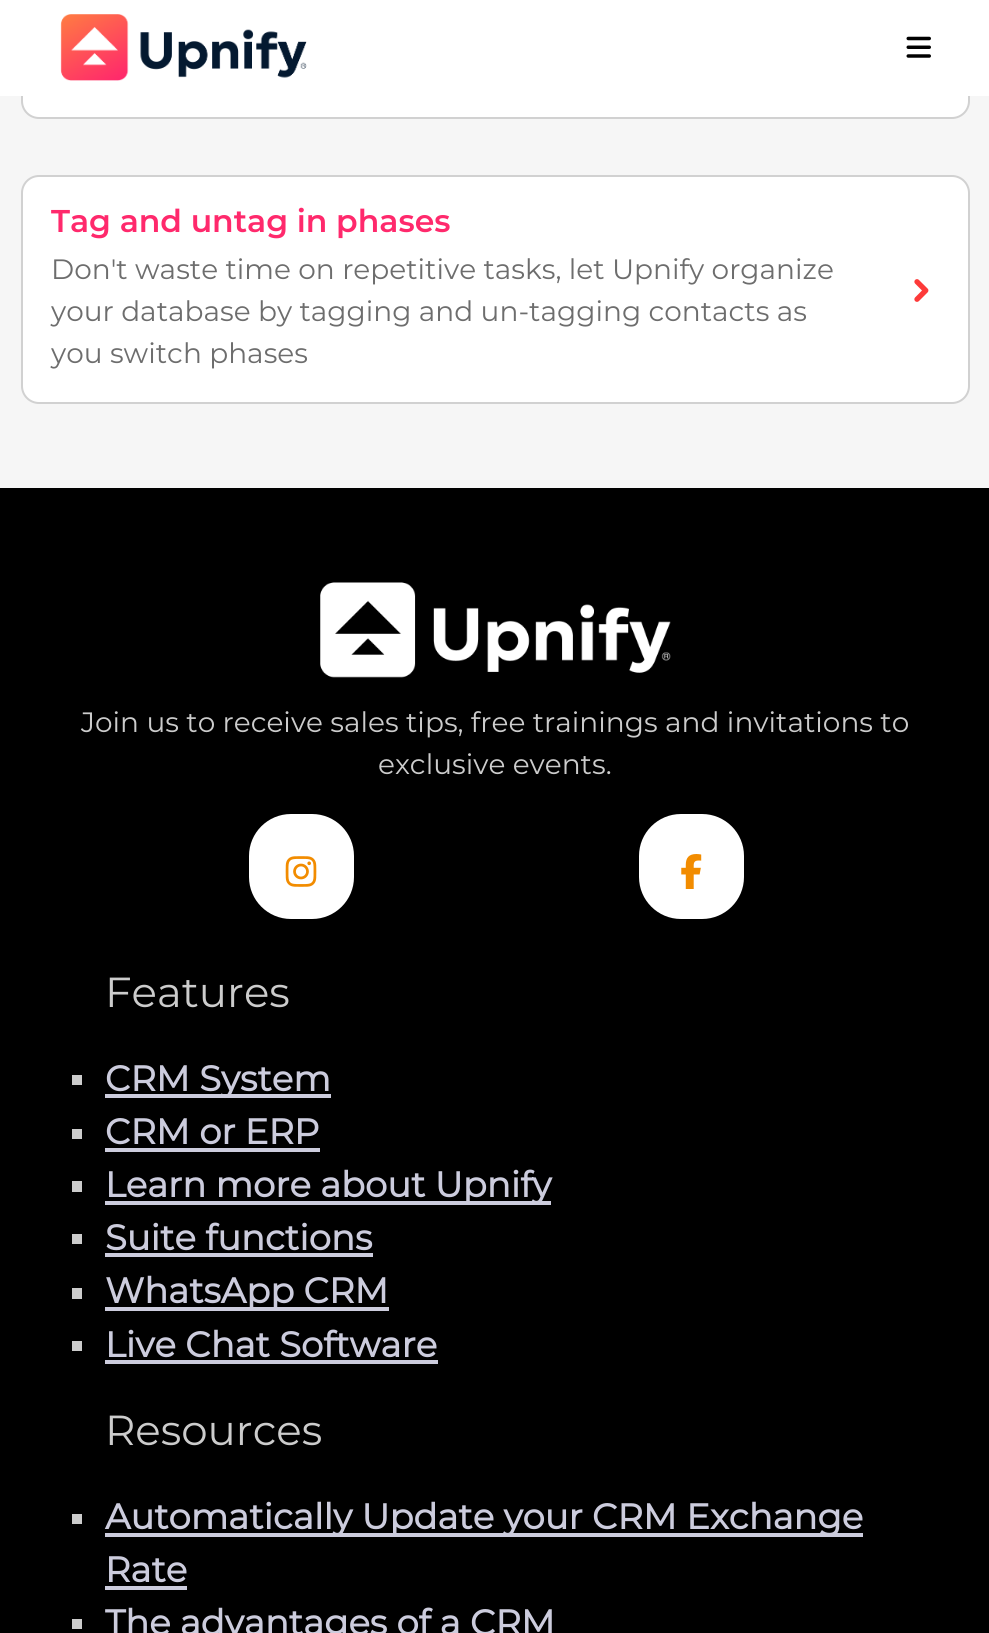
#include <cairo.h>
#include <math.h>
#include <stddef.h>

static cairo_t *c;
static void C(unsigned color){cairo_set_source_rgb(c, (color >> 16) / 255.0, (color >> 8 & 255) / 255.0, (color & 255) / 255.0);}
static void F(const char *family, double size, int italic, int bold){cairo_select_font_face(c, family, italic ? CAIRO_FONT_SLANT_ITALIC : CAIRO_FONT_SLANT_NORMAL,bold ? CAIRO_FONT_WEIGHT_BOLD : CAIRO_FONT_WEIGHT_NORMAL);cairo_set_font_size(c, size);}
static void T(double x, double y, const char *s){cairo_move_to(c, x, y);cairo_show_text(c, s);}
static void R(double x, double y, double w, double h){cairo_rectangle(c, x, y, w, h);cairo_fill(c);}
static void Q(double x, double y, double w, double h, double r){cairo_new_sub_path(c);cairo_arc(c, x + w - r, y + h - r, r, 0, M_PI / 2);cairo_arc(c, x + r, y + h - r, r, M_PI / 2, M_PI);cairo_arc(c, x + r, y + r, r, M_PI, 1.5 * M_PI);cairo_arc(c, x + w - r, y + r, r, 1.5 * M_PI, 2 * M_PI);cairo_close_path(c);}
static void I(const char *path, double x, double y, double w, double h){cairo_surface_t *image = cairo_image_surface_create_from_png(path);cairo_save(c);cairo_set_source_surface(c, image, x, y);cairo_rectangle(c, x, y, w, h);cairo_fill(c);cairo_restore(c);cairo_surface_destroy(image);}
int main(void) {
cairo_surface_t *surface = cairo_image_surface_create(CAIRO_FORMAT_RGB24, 989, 1633);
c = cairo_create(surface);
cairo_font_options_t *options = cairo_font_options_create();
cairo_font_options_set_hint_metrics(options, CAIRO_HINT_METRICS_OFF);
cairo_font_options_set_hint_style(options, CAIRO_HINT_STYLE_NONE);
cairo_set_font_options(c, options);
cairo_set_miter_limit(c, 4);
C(0xf6f6f6);
cairo_paint(c);
C(0xffffff);
Q(21,-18,949,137,18);
cairo_fill(c);
Q(22,-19,947,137,17);
cairo_set_source_rgba(c,0,0,0,0.18);
cairo_stroke(c);
C(0xffffff);
R(0,0,989,96);
I("1.png",60,14,247,67);
I("2.png",906,36,25,22);
Q(21,175,949,229,18);
cairo_fill(c);
Q(22,176,947,227,17);
cairo_set_source_rgba(c,0,0,0,0.18);
cairo_stroke(c);
F("Montserrat SemiBold",31.5,0,0);
C(0xff296c);
T(51,232,"Tag and untag in phases");
F("Montserrat",28,0,0);
C(0x6d6d6d);
T(51,279,"Don't waste time on repetitive tasks, let Upnify organize");
T(51,321,"your database by tagging and un-tagging contacts as");
T(51,363,"you switch phases");
I("3.png",914,279,15,23);
C(0x000000);
R(0,488,989,1145);
I("4.png",320,582,351,96);
C(0xcccccc);
T(81,732,"Join us to receive sales tips, free trainings and invitations to");
T(378,774,"exclusive events.");
C(0xffffff);
Q(249,814,105,105,42);
cairo_fill(c);
I("5.png",285,856,32,31);
Q(639,814,105,105,42);
cairo_fill(c);
I("6.png",681,854,21,35);
F("Montserrat",42,0,0);
C(0xcccccc);
T(105,1007,"Features");
R(72,1075,10,10);
C(0xccccdd);
R(105,1094,226,4);
F("Montserrat",35.4,0,1);
T(105,1091,"CRM System");
C(0xcccccc);
R(72,1129,10,10);
C(0xccccdd);
T(105,1144,"CRM or ERP");
R(105,1148,215,4);
C(0xcccccc);
R(72,1181,10,11);
C(0xccccdd);
R(105,1201,446,4);
T(105,1197,"Learn more about Upnify");
C(0xcccccc);
R(72,1234,10,10);
C(0xccccdd);
T(105,1250,"Suite functions");
R(105,1253,268,4);
C(0xcccccc);
R(72,1288,10,11);
C(0xccccdd);
R(105,1307,284,4);
T(105,1303,"WhatsApp CRM");
C(0xcccccc);
R(72,1341,10,10);
C(0xccccdd);
T(105,1357,"Live Chat Software");
R(105,1360,333,4);
F("Montserrat",42,0,0);
C(0xcccccc);
T(105,1445,"Resources");
R(72,1514,10,10);
C(0xccccdd);
R(105,1533,758,4);
F("Montserrat",35.4,0,1);
T(105,1529,"Automatically Update your CRM Exchange");
T(105,1582,"Rate");
R(105,1586,82,4);
C(0xcccccc);
R(72,1619,10,10);
C(0xccccdd);
T(105,1635,"The advantages of a CRM");
cairo_surface_write_to_png(surface, "o.png");
cairo_font_options_destroy(options);
cairo_destroy(c);
cairo_surface_destroy(surface);
return 0;
}
